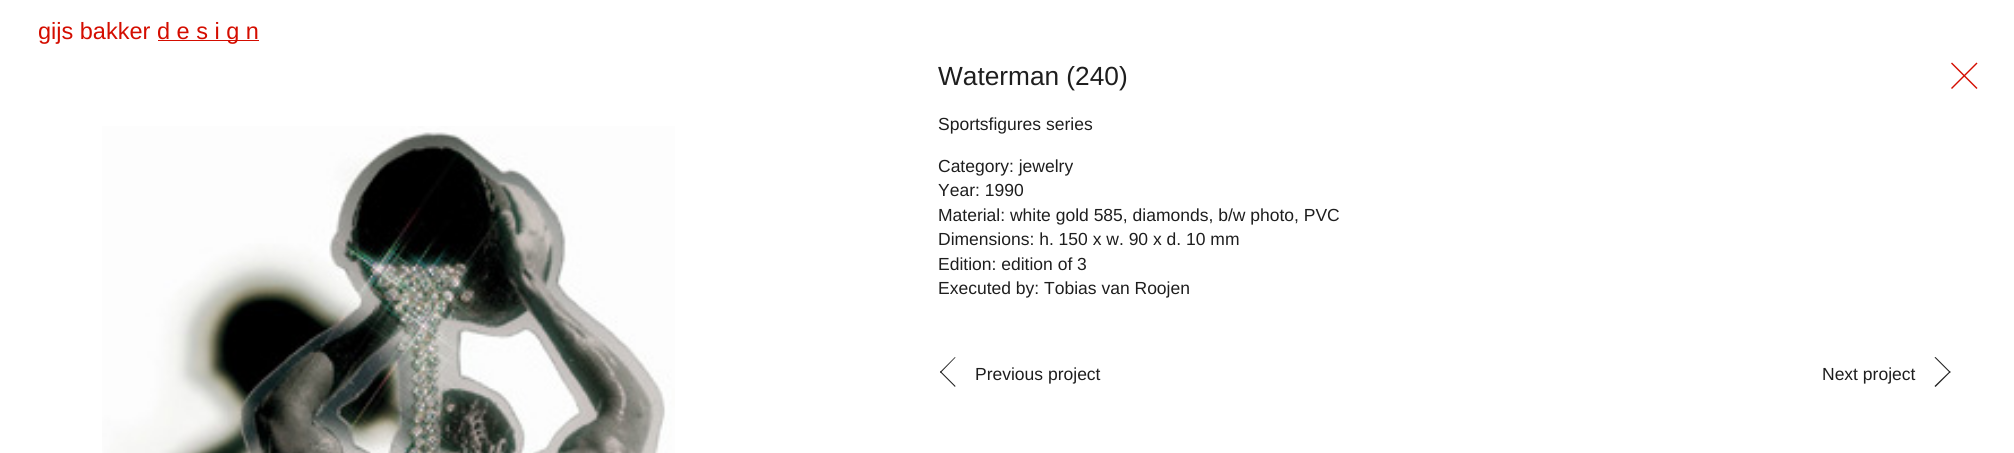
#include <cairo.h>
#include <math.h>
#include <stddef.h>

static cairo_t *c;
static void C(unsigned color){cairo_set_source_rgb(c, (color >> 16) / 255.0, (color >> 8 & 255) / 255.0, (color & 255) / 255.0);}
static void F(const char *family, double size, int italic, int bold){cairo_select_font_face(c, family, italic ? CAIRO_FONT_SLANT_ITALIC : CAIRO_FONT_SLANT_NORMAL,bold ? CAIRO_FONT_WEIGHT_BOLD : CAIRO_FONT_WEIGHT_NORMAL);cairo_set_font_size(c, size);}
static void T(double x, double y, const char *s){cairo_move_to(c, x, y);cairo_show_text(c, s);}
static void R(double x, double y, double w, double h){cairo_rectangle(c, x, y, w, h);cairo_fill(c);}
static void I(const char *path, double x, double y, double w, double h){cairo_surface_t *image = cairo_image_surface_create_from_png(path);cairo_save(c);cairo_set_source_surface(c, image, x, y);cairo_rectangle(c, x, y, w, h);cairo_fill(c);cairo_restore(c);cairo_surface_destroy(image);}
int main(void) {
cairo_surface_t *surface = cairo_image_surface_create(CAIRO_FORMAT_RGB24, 2014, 453);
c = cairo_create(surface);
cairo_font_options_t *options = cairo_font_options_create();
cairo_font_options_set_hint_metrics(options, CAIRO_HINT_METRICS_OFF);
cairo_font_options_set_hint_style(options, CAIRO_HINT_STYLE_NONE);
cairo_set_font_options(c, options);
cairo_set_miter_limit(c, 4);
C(0xffffff);
cairo_paint(c);
F("Liberation Sans",23.5,0,0);
C(0xd40d00);
T(38,39,"gijs bakker");
R(158,40,101,1);
T(157,39,"d e s i g n");
F("Liberation Sans",26.25,0,0);
C(0x1e1e1e);
T(938,85,"Waterman (240)");
C(0xd40d00);
cairo_new_path(c);
cairo_move_to(c,1976.5,62.5);
cairo_line_to(c,1977.5,63.5);
cairo_line_to(c,1952,89);
cairo_line_to(c,1951,88);
cairo_close_path(c);
cairo_fill(c);
cairo_new_path(c);
cairo_move_to(c,1951,63.5);
cairo_line_to(c,1952,62.5);
cairo_line_to(c,1977.5,88);
cairo_line_to(c,1976.5,89);
cairo_close_path(c);
cairo_fill(c);
I("1.png",102,126,573,327);
F("Liberation Sans",17.5,0,0);
C(0x1e1e1e);
T(938,130,"Sportsfigures series");
T(938,172,"Category: jewelry");
T(938,196,"Year: 1990");
T(938,221,"Material: white gold 585, diamonds, b/w photo, PVC");
T(938,245,"Dimensions: h. 150 x w. 90 x d. 10 mm");
T(938,270,"Edition: edition of 3");
T(938,294,"Executed by: Tobias van Roojen");
cairo_new_path(c);
cairo_move_to(c,955,387);
cairo_line_to(c,940,372);
cairo_line_to(c,940.5,371);
cairo_line_to(c,955.5,386);
cairo_close_path(c);
cairo_fill(c);
cairo_new_path(c);
cairo_move_to(c,940.5,373);
cairo_line_to(c,940,372);
cairo_line_to(c,955,357);
cairo_line_to(c,955.5,357.5);
cairo_close_path(c);
cairo_fill(c);
T(975,380,"Previous project");
T(1822,380,"Next project");
cairo_new_path(c);
cairo_move_to(c,1935.5,357);
cairo_line_to(c,1950.5,372);
cairo_line_to(c,1950,373);
cairo_line_to(c,1934.5,357.5);
cairo_close_path(c);
cairo_fill(c);
cairo_new_path(c);
cairo_move_to(c,1950,371);
cairo_line_to(c,1950.5,372);
cairo_line_to(c,1935.5,387);
cairo_line_to(c,1934.5,386);
cairo_close_path(c);
cairo_fill(c);
cairo_surface_write_to_png(surface, "o.png");
cairo_font_options_destroy(options);
cairo_destroy(c);
cairo_surface_destroy(surface);
return 0;
}
